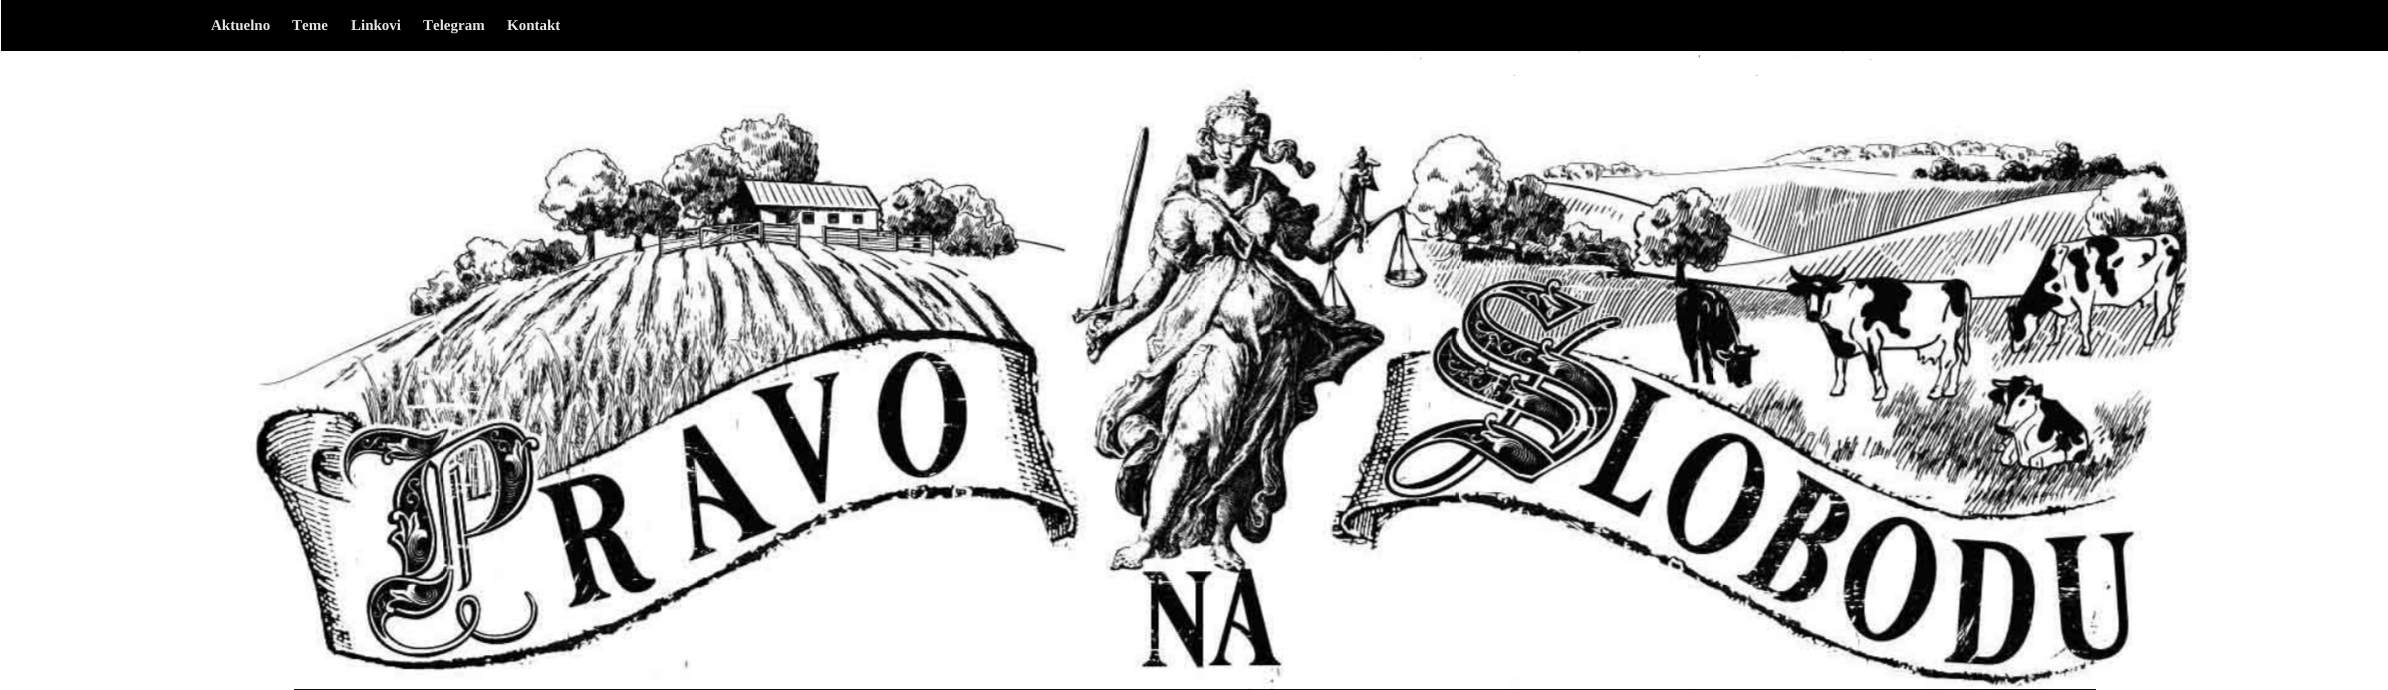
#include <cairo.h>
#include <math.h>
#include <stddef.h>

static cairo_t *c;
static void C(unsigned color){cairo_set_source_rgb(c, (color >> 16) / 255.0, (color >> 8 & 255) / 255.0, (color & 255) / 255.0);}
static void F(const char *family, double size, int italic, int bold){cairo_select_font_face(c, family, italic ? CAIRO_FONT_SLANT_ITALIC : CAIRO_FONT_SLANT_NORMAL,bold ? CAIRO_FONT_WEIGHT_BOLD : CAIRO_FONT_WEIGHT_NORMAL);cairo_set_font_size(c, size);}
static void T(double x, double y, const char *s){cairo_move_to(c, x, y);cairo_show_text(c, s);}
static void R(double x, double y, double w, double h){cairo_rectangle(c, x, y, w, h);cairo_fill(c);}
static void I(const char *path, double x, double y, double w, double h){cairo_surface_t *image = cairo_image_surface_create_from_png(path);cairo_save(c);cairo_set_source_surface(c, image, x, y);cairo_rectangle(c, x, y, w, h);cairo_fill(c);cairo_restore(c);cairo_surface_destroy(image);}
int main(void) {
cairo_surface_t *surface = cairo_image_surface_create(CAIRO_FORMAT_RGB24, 2388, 690);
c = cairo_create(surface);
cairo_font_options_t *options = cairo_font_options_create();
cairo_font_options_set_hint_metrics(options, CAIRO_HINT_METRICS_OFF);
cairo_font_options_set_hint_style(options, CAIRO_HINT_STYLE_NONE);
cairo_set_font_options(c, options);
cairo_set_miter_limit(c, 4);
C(0xffffff);
cairo_paint(c);
I("1.png",440,51,1498,638);
C(0x000000);
R(1,0,2387,51);
F("Liberation Serif",15,0,1);
C(0xe5e5e5);
T(211,30,"Aktuelno");
T(292,30,"Teme");
T(351,30,"Linkovi");
T(423,30,"Telegram");
T(507,30,"Kontakt");
I("2.png",250,76,1942,613);
C(0x0a0a0a);
R(294,689,1802,1);
cairo_surface_write_to_png(surface, "o.png");
cairo_font_options_destroy(options);
cairo_destroy(c);
cairo_surface_destroy(surface);
return 0;
}
